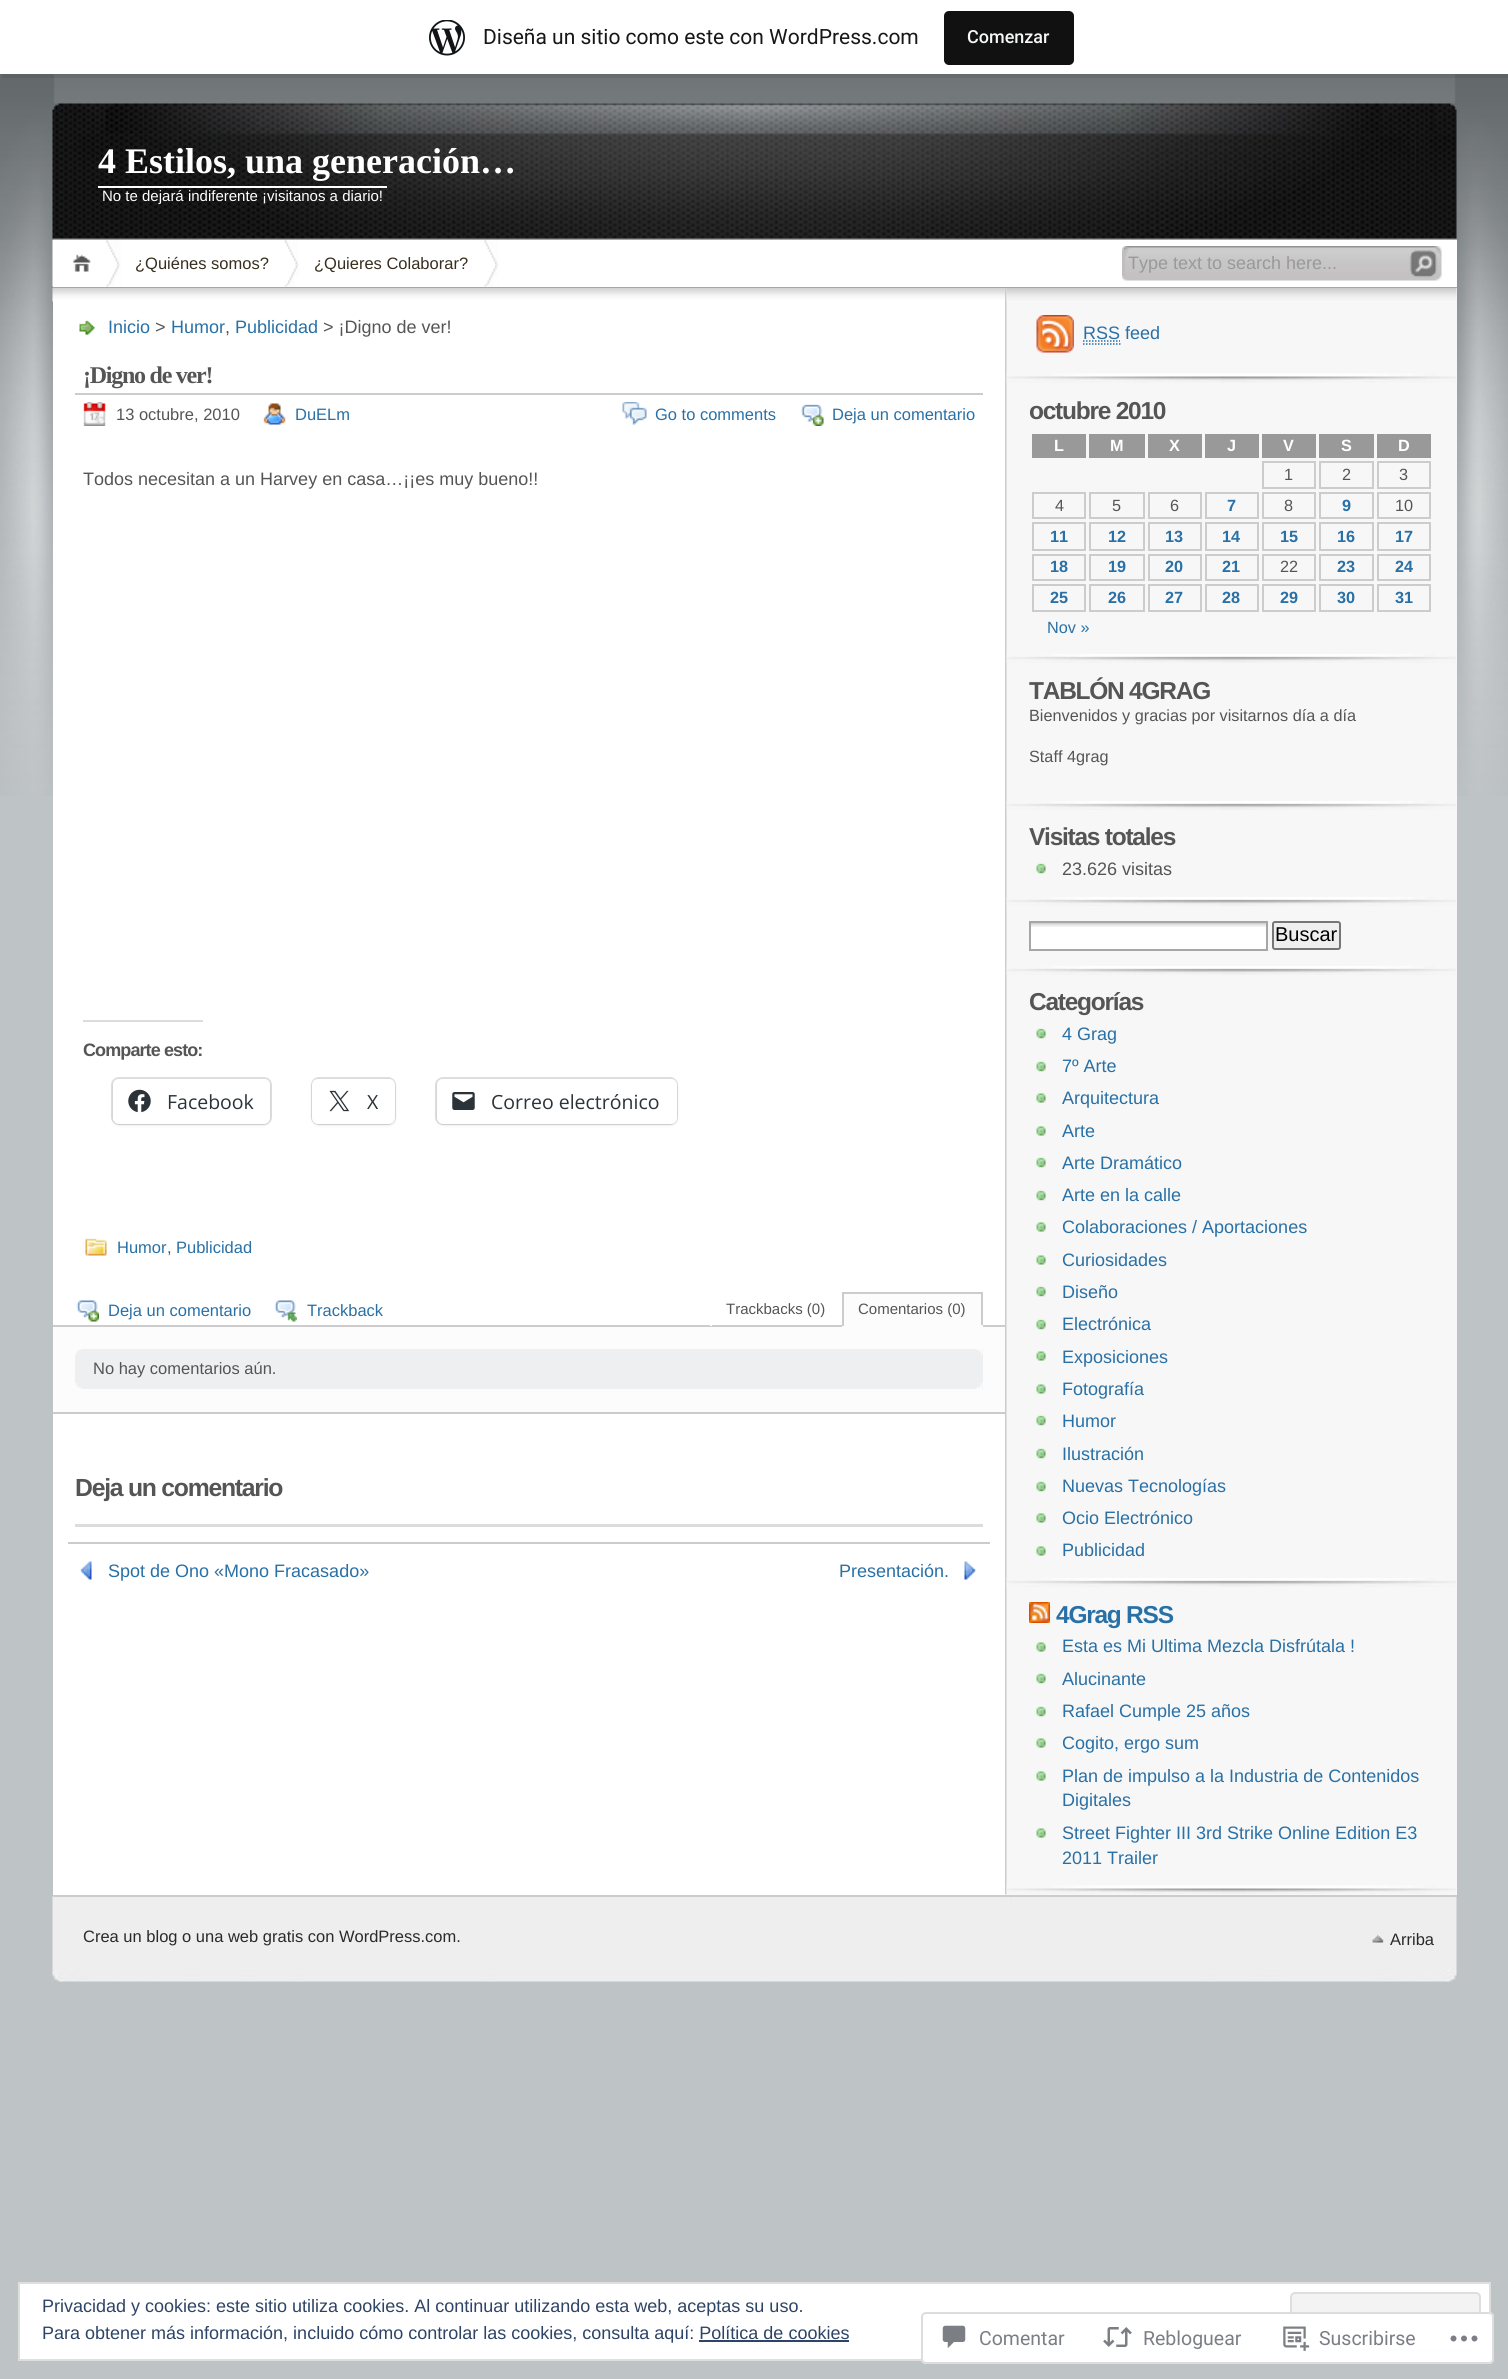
#include <cairo.h>
#include <math.h>
#include <stddef.h>

static cairo_t *c;
static void C(unsigned color){cairo_set_source_rgb(c, (color >> 16) / 255.0, (color >> 8 & 255) / 255.0, (color & 255) / 255.0);}
static void F(const char *family, double size, int italic, int bold){cairo_select_font_face(c, family, italic ? CAIRO_FONT_SLANT_ITALIC : CAIRO_FONT_SLANT_NORMAL,bold ? CAIRO_FONT_WEIGHT_BOLD : CAIRO_FONT_WEIGHT_NORMAL);cairo_set_font_size(c, size);}
static void T(double x, double y, const char *s){cairo_move_to(c, x, y);cairo_show_text(c, s);}
static void L(double x, double y, const char *s, double letter, double word){cairo_move_to(c, x, y);while (*s) {char ch[5] = {0};int n = 0;do ch[n++] = *s++; while ((*s & 0xC0) == 0x80);cairo_show_text(c, ch);cairo_rel_move_to(c, letter + word * (*ch == ' '), 0);}}
static void R(double x, double y, double w, double h){cairo_rectangle(c, x, y, w, h);cairo_fill(c);}
static void Q(double x, double y, double w, double h, double r){cairo_new_sub_path(c);cairo_arc(c, x + w - r, y + h - r, r, 0, M_PI / 2);cairo_arc(c, x + r, y + h - r, r, M_PI / 2, M_PI);cairo_arc(c, x + r, y + r, r, M_PI, 1.5 * M_PI);cairo_arc(c, x + w - r, y + r, r, 1.5 * M_PI, 2 * M_PI);cairo_close_path(c);}
static void S(double x, double y, double w, double h, double r, double blur, double alpha){cairo_push_group_with_content(c, CAIRO_CONTENT_ALPHA);cairo_set_operator(c, CAIRO_OPERATOR_SOURCE);for (int i = 15; i >= -15 && fmin(w, h) + blur * i / 3 > 0; i -= 2) {double e = blur * i / 6;cairo_set_source_rgba(c, 0, 0, 0, alpha * erfc((i - 1) / 8.5) / 2);Q(x - e, y - e, w + 2 * e, h + 2 * e, fmax(0, fmin(r + e + blur * .6, fmin(w, h) / 2 + e)));cairo_fill(c);}cairo_pattern_t *soft = cairo_pop_group(c);cairo_mask(c, soft);cairo_pattern_destroy(soft);}
static void I(const char *path, double x, double y, double w, double h){cairo_surface_t *image = cairo_image_surface_create_from_png(path);cairo_save(c);cairo_set_source_surface(c, image, x, y);cairo_rectangle(c, x, y, w, h);cairo_fill(c);cairo_restore(c);cairo_surface_destroy(image);}
int main(void) {
cairo_surface_t *surface = cairo_image_surface_create(CAIRO_FORMAT_RGB24, 1508, 2379);
c = cairo_create(surface);
cairo_font_options_t *options = cairo_font_options_create();
cairo_font_options_set_hint_metrics(options, CAIRO_HINT_METRICS_OFF);
cairo_font_options_set_hint_style(options, CAIRO_HINT_STYLE_NONE);
cairo_set_font_options(c, options);
cairo_set_miter_limit(c, 4);
C(0xbec3c6);
cairo_paint(c);
I("1.png",53,74,1403,165);
I("3.png",0,74,1508,722);
cairo_set_source_rgba(c,0,0,0,0.08);
cairo_new_path(c);
cairo_move_to(c,2,74);
cairo_line_to(c,2,78);
cairo_line_to(c,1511,78);
cairo_line_to(c,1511,5);
cairo_line_to(c,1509,5);
cairo_line_to(c,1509,74);
cairo_close_path(c);
cairo_fill(c);
C(0xffffff);
R(0,0,1508,74);
I("2.png",429,20,36,36);
F("Roboto",21,0,0);
C(0x171717);
T(483,44,"Diseña un sitio como este con WordPress.com");
C(0x111111);
Q(944,11,130,54,5);
cairo_fill(c);
F("Roboto Medium",18,0,0);
C(0xf6f7f7);
T(967,43,"Comenzar");
I("4.png",52,103,1405,136);
C(0xa6a6a6);
R(53,239,1404,1);
F("Liberation Serif",36,0,1);
C(0xffffff);
T(98,173,"4 Estilos, una generación…");
R(98,186,289,2);
F("Liberation Sans",15,0,0);
T(102,201,"No te dejará indiferente ¡visitanos a diario!");
R(53,240,1404,47);
C(0xa6a6a6);
R(53,287,1404,1);
I("5.png",52,240,39,47);
I("6.png",106,240,15,47);
F("Liberation Sans",16.5,0,0);
C(0x382e1f);
T(135,269,"¿Quiénes somos?");
I("7.png",284,240,15,47);
T(314,269,"¿Quieres Colaborar?");
I("8.png",484,240,15,47);
I("9.png",1122,246,320,35);
F("Liberation Sans",18,0,0);
C(0x999999);
T(1128,269,"Type text to search here...");
C(0xffffff);
R(53,301,954,1594);
I("10.png",1005,288,2,1607);
I("11.png",52,288,953,14);
I("12.png",79,320,16,16);
C(0x2970a6);
T(108,333,"Inicio");
C(0x555555);
T(155,333,">");
C(0x2970a6);
T(171,333,"Humor");
T(235,333,"Publicidad");
C(0x555555);
T(323,333,"> ¡Digno de ver!");
T(225,333,",");
C(0xcccccc);
R(75,393,908,2);
F("Liberation Serif",24,0,1);
C(0x555555);
L(83,383,"¡Digno de ver!",-1.25,0);
I("13.png",83,402,23,24);
F("Liberation Sans",16.5,0,0);
T(116,420,"13 octubre, 2010");
I("14.png",263,403,23,22);
C(0x2970a6);
T(295,420,"DuELm");
I("15.png",622,402,25,23);
T(655,420,"Go to comments");
I("16.png",801,404,23,22);
T(832,420,"Deja un comentario");
F("Liberation Sans",18,0,0);
C(0x555555);
T(83,485,"Todos necesitan a un Harvey en casa…¡¡es muy bueno!!");
C(0xdcdcde);
R(83,1020,120,2);
F("Liberation Sans",18,0,1);
C(0x555555);
L(83,1056,"Comparte esto:",-.9,0);
Q(112,1078,159,46,7);
C(0xe0e0e0);
cairo_stroke(c);
C(0x000000);
S(113,1080,157,45,6,1.5,.12);
C(0xffffff);
Q(113,1079,157,45,6);
cairo_fill(c);
I("17.png",128,1089,23,24);
F("Open Sans",19.5,0,0);
C(0x2c3338);
T(167,1109,"Facebook");
Q(312,1078,83,46,7);
C(0xe0e0e0);
cairo_stroke(c);
C(0x000000);
S(312,1080,83,45,6,1.5,.12);
C(0xffffff);
Q(312,1079,83,45,6);
cairo_fill(c);
I("18.png",329,1090,21,22);
C(0x2c3338);
T(367,1109,"X");
Q(436,1078,241,46,7);
C(0xe0e0e0);
cairo_stroke(c);
C(0x000000);
S(437,1080,240,45,6,1.5,.12);
C(0xffffff);
Q(437,1079,240,45,6);
cairo_fill(c);
I("19.png",452,1092,23,18);
C(0x2c3338);
T(491,1109,"Correo electrónico");
I("20.png",85,1238,22,18);
F("Liberation Sans",16.5,0,0);
C(0x2970a6);
T(117,1253,"Humor");
C(0x555555);
T(167,1253,",");
C(0x2970a6);
T(176,1253,"Publicidad");
I("21.png",76,1300,23,22);
T(108,1316,"Deja un comentario");
I("22.png",274,1300,23,22);
T(307,1316,"Trackback");
C(0xcccccc);
R(53,1325,952,2);
C(0xffffff);
R(840,1325,2,1);
C(0xcccccc);
R(840,1325,2,1);
C(0xffffff);
R(710,1325,2,1);
F("Liberation Sans",15,0,0);
C(0x555555);
T(726,1314,"Trackbacks (0)");
C(0xfcfcfc);
R(844,1294,137,31);
C(0xcccccc);
R(842,1292,141,2);
R(981,1292,2,34);
C(0xfcfcfc);
R(842,1325,141,2);
C(0xcccccc);
R(842,1292,2,34);
C(0x555555);
T(858,1314,"Comentarios (0)");
C(0xfcfcfc);
R(53,1327,952,85);
C(0xcccccc);
R(53,1412,952,2);
C(0xedeff0);
R(75,1349,908,40);
I("23.png",75,1349,908,40);
F("Liberation Sans",16.5,0,0);
C(0x555555);
T(93,1374,"No hay comentarios aún.");
F("Liberation Sans",24.75,0,1);
L(75,1496,"Deja un comentario",-1.25,0);
C(0xdcdcde);
R(75,1524,908,3);
C(0xcccccc);
R(68,1542,922,2);
I("24.png",80,1561,12,19);
F("Liberation Sans",18,0,0);
C(0x2970a6);
T(108,1577,"Spot de Ono «Mono Fracasado»");
I("25.png",964,1561,12,19);
T(839,1577,"Presentación.");
C(0xf7f7f7);
R(1007,288,450,1607);
I("26.png",1006,288,451,14);
I("27.png",1006,373,450,10);
I("28.png",1036,315,38,38);
C(0x2970a6);
T(1083,339,"RSS feed");
cairo_new_path(c);
cairo_move_to(c,1083,344);
cairo_line_to(c,1120.5,344);
cairo_move_to(c,1083,341);
cairo_line_to(c,1120,341);
cairo_set_line_width(c,1.5);
cairo_set_dash(c,(double[]){1.5,1.5},2,0);
cairo_stroke(c);
I("29.png",1006,654,450,9);
F("Liberation Sans",24.5,0,1);
C(0x555555);
L(1029,419,"octubre 2010",-1.25,0);
C(0x999999);
R(1032,434,54,24);
F("Liberation Sans",16.25,0,1);
C(0xffffff);
T(1054,451,"L");
C(0x999999);
R(1089,434,56,24);
C(0xffffff);
T(1110,451,"M");
C(0x999999);
R(1148,434,54,24);
C(0xffffff);
T(1169,451,"X");
C(0x999999);
R(1205,434,54,24);
C(0xffffff);
T(1227,451,"J");
C(0x999999);
R(1262,434,54,24);
C(0xffffff);
T(1283,451,"V");
C(0x999999);
R(1319,434,55,24);
C(0xffffff);
T(1341,451,"S");
C(0x999999);
R(1377,434,54,24);
C(0xffffff);
T(1398,451,"D");
cairo_rectangle(c,1263,462,52,26);
C(0xcccccc);
cairo_set_line_width(c,2);
cairo_set_dash(c,NULL,0,0);
cairo_stroke(c);
F("Liberation Sans",16.25,0,0);
C(0x555555);
T(1284,480,"1");
cairo_rectangle(c,1320,462,53,26);
C(0xcccccc);
cairo_stroke(c);
C(0x555555);
T(1342,480,"2");
cairo_rectangle(c,1378,462,52,26);
C(0xcccccc);
cairo_stroke(c);
C(0x555555);
T(1399,480,"3");
cairo_rectangle(c,1033,493,52,25);
C(0xcccccc);
cairo_stroke(c);
C(0x555555);
T(1055,511,"4");
cairo_rectangle(c,1090,493,54,25);
C(0xcccccc);
cairo_stroke(c);
C(0x555555);
T(1112,511,"5");
cairo_rectangle(c,1149,493,52,25);
C(0xcccccc);
cairo_stroke(c);
C(0x555555);
T(1170,511,"6");
cairo_rectangle(c,1206,493,52,25);
C(0xcccccc);
cairo_stroke(c);
F("Liberation Sans",16.25,0,1);
C(0x2970a6);
T(1227,511,"7");
cairo_rectangle(c,1263,493,52,25);
C(0xcccccc);
cairo_stroke(c);
F("Liberation Sans",16.25,0,0);
C(0x555555);
T(1284,511,"8");
cairo_rectangle(c,1320,493,53,25);
C(0xcccccc);
cairo_stroke(c);
F("Liberation Sans",16.25,0,1);
C(0x2970a6);
T(1342,511,"9");
cairo_rectangle(c,1378,493,52,25);
C(0xcccccc);
cairo_stroke(c);
F("Liberation Sans",16.25,0,0);
C(0x555555);
T(1395,511,"10");
cairo_rectangle(c,1033,523,52,27);
C(0xcccccc);
cairo_stroke(c);
F("Liberation Sans",16.25,0,1);
C(0x2970a6);
T(1050,542,"11");
cairo_rectangle(c,1090,523,54,27);
C(0xcccccc);
cairo_stroke(c);
C(0x2970a6);
T(1108,542,"12");
cairo_rectangle(c,1149,523,52,27);
C(0xcccccc);
cairo_stroke(c);
C(0x2970a6);
T(1165,542,"13");
cairo_rectangle(c,1206,523,52,27);
C(0xcccccc);
cairo_stroke(c);
C(0x2970a6);
T(1222,542,"14");
cairo_rectangle(c,1263,523,52,27);
C(0xcccccc);
cairo_stroke(c);
C(0x2970a6);
T(1280,542,"15");
cairo_rectangle(c,1320,523,53,27);
C(0xcccccc);
cairo_stroke(c);
C(0x2970a6);
T(1337,542,"16");
cairo_rectangle(c,1378,523,52,27);
C(0xcccccc);
cairo_stroke(c);
C(0x2970a6);
T(1395,542,"17");
cairo_rectangle(c,1033,555,52,25);
C(0xcccccc);
cairo_stroke(c);
C(0x2970a6);
T(1050,572,"18");
cairo_rectangle(c,1090,555,54,25);
C(0xcccccc);
cairo_stroke(c);
C(0x2970a6);
T(1108,572,"19");
cairo_rectangle(c,1149,555,52,25);
C(0xcccccc);
cairo_stroke(c);
C(0x2970a6);
T(1165,572,"20");
cairo_rectangle(c,1206,555,52,25);
C(0xcccccc);
cairo_stroke(c);
C(0x2970a6);
T(1222,572,"21");
cairo_rectangle(c,1263,555,52,25);
C(0xcccccc);
cairo_stroke(c);
F("Liberation Sans",16.25,0,0);
C(0x555555);
T(1280,572,"22");
cairo_rectangle(c,1320,555,53,25);
C(0xcccccc);
cairo_stroke(c);
F("Liberation Sans",16.25,0,1);
C(0x2970a6);
T(1337,572,"23");
cairo_rectangle(c,1378,555,52,25);
C(0xcccccc);
cairo_stroke(c);
C(0x2970a6);
T(1395,572,"24");
cairo_rectangle(c,1033,585,52,26);
C(0xcccccc);
cairo_stroke(c);
C(0x2970a6);
T(1050,603,"25");
cairo_rectangle(c,1090,585,54,26);
C(0xcccccc);
cairo_stroke(c);
C(0x2970a6);
T(1108,603,"26");
cairo_rectangle(c,1149,585,52,26);
C(0xcccccc);
cairo_stroke(c);
C(0x2970a6);
T(1165,603,"27");
cairo_rectangle(c,1206,585,52,26);
C(0xcccccc);
cairo_stroke(c);
C(0x2970a6);
T(1222,603,"28");
cairo_rectangle(c,1263,585,52,26);
C(0xcccccc);
cairo_stroke(c);
C(0x2970a6);
T(1280,603,"29");
cairo_rectangle(c,1320,585,53,26);
C(0xcccccc);
cairo_stroke(c);
C(0x2970a6);
T(1337,603,"30");
cairo_rectangle(c,1378,585,52,26);
C(0xcccccc);
cairo_stroke(c);
C(0x2970a6);
T(1395,603,"31");
F("Liberation Sans",16.25,0,0);
T(1047,633,"Nov »");
I("29.png",1006,801,450,9);
F("Liberation Sans",24.5,0,1);
C(0x555555);
L(1029,699,"TABLÓN 4GRAG",-1.25,0);
F("Liberation Sans",16.25,0,0);
T(1029,721,"Bienvenidos y gracias por visitarnos día a día");
T(1029,762,"Staff 4grag");
I("29.png",1006,897,450,9);
F("Liberation Sans",24.5,0,1);
L(1029,845,"Visitas totales",-1.25,0);
I("30.png",1036,863,10,11);
F("Liberation Sans",18,0,0);
T(1062,875,"23.626 visitas");
I("29.png",1006,966,450,9);
C(0xffffff);
R(1031,927,235,22);
I("31.png",1031,923,235,4);
cairo_rectangle(c,1030,922,237,28);
C(0xa6a6a6);
cairo_stroke(c);
C(0xefefef);
Q(1273,922,67,27,2);
cairo_fill_preserve(c);
C(0x767676);
cairo_stroke(c);
F("Liberation Sans",20,0,0);
C(0x000000);
T(1275,941,"Buscar");
I("29.png",1006,1578,450,9);
F("Liberation Sans",24.5,0,1);
C(0x555555);
L(1029,1010,"Categorías",-1.25,0);
I("30.png",1036,1028,10,11);
F("Liberation Sans",18,0,0);
C(0x2970a6);
T(1062,1040,"4 Grag");
I("30.png",1036,1061,10,11);
T(1062,1072,"7º Arte");
I("32.png",1036,1093,10,10);
T(1062,1104,"Arquitectura");
I("32.png",1036,1126,10,10);
T(1062,1137,"Arte");
I("30.png",1036,1157,10,11);
T(1062,1169,"Arte Dramático");
I("30.png",1036,1190,10,11);
T(1062,1201,"Arte en la calle");
I("32.png",1036,1222,10,10);
T(1062,1233,"Colaboraciones / Aportaciones");
I("32.png",1036,1255,10,10);
T(1062,1266,"Curiosidades");
I("30.png",1036,1286,10,11);
T(1062,1298,"Diseño");
I("30.png",1036,1319,10,11);
T(1062,1330,"Electrónica");
I("32.png",1036,1351,10,10);
T(1062,1363,"Exposiciones");
I("32.png",1036,1384,10,10);
T(1062,1395,"Fotografía");
I("30.png",1036,1415,10,11);
T(1062,1427,"Humor");
I("30.png",1036,1448,10,11);
T(1062,1460,"Ilustración");
I("30.png",1036,1481,10,11);
T(1062,1492,"Nuevas Tecnologías");
I("32.png",1036,1513,10,10);
T(1062,1524,"Ocio Electrónico");
I("32.png",1036,1546,10,10);
T(1062,1556,"Publicidad");
I("33.png",1006,1885,450,9);
C(0xffa500);
R(1029,1602,21,21);
I("34.png",1029,1602,21,21);
F("Liberation Sans",24.5,0,1);
C(0x2970a6);
L(1056,1623,"4Grag RSS",-1.25,0);
I("32.png",1036,1642,10,10);
F("Liberation Sans",18,0,0);
T(1062,1652,"Esta es Mi Ultima Mezcla Disfrútala !");
I("30.png",1036,1673,10,11);
T(1062,1685,"Alucinante");
I("30.png",1036,1706,10,11);
T(1062,1717,"Rafael Cumple 25 años");
I("32.png",1036,1738,10,10);
T(1062,1749,"Cogito, ergo sum");
I("32.png",1036,1771,10,10);
T(1062,1782,"Plan de impulso a la Industria de Contenidos");
T(1062,1806,"Digitales");
I("32.png",1036,1828,10,10);
T(1062,1839,"Street Fighter III 3rd Strike Online Edition E3");
T(1062,1864,"2011 Trailer");
I("35.png",52,1896,1405,86);
C(0xcccccc);
R(53,1895,1404,2);
F("Liberation Sans",16.5,0,0);
C(0x2a2a2a);
T(83,1942,"Crea un blog o una web gratis con WordPress.com.");
I("36.png",1372,1934,12,9);
T(1390,1945,"Arriba");
C(0xffffff);
cairo_rectangle(c,19,2283,1471,77);
cairo_fill_preserve(c);
C(0xdedede);
cairo_stroke(c);
F("Liberation Sans",18,0,0);
C(0x2e4467);
T(42,2312,"Privacidad y cookies: este sitio utiliza cookies. Al continuar utilizando esta web, aceptas su uso.");
C(0xf3f3f3);
Q(1291,2293,189,57,4);
cairo_fill_preserve(c);
C(0xdedede);
cairo_stroke(c);
C(0x2e4467);
T(42,2339,"Para obtener más información, incluido cómo controlar las cookies, consulta aquí: Política de cookies");
R(699,2340,150,2);
cairo_set_source_rgba(c,1,1,1,0.98);
Q(921,2312,573,52,5);
cairo_fill(c);
Q(922,2313,571,50,4);
cairo_set_source_rgba(c,0.863,0.863,0.871,0.98);
cairo_stroke(c);
I("37.png",942,2325,24,24);
F("Roboto",19.5,0,0);
C(0x7b7f85);
T(979,2345,"Comentar");
I("38.png",1103,2327,29,20);
T(1143,2345,"Rebloguear");
I("39.png",1283,2326,27,25);
T(1319,2345,"Suscribirse");
I("40.png",1450,2335,28,7);
cairo_surface_write_to_png(surface, "o.png");
cairo_font_options_destroy(options);
cairo_destroy(c);
cairo_surface_destroy(surface);
return 0;
}
